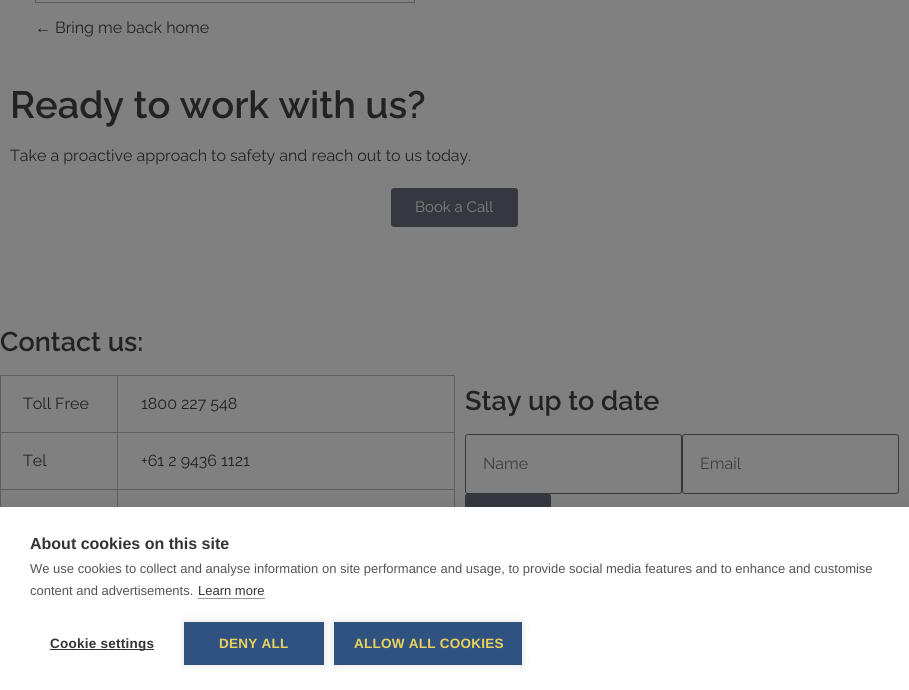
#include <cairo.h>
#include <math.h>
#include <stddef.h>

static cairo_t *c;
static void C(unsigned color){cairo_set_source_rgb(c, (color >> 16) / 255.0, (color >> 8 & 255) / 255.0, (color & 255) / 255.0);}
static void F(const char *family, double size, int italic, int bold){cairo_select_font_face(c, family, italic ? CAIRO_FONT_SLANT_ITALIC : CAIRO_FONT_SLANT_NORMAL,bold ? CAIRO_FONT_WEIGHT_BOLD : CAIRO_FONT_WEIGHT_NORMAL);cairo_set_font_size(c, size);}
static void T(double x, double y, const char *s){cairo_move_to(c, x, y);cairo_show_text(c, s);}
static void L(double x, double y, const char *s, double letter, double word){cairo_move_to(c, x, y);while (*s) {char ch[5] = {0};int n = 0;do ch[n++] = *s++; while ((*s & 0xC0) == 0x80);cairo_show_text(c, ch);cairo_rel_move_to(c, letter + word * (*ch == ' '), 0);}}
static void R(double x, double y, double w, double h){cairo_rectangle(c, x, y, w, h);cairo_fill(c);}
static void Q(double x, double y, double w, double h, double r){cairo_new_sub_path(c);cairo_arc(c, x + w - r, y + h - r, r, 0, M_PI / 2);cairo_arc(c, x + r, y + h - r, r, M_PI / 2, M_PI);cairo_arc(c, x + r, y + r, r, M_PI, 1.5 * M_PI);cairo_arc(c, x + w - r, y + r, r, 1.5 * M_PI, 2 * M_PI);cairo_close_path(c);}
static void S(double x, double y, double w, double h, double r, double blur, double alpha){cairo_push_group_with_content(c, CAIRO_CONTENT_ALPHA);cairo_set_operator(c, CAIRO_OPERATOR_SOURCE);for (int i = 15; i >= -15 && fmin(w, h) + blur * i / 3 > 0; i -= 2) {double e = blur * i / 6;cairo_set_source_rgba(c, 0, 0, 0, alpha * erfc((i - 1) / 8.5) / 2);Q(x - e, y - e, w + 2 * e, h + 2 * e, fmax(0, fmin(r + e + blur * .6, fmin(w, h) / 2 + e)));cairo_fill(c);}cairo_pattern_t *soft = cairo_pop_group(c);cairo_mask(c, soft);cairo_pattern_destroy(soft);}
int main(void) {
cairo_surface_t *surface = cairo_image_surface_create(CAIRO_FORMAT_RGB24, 909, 690);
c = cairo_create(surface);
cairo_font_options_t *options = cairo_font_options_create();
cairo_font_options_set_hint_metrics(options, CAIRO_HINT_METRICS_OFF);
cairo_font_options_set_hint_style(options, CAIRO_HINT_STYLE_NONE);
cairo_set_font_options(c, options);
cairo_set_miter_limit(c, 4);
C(0x808080);
cairo_paint(c);
cairo_rectangle(c,35.5,-.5,379,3);
C(0x5e5e5e);
cairo_set_line_width(c,1);
cairo_stroke(c);
F("Liberation Sans",16,0,0);
C(0x222222);
T(35,33,"←");
F("Raleway",16,0,0);
T(55,33,"Bring me back home");
F("Raleway SemiBold",38,0,0);
T(10,118,"Ready to work with us?");
F("Raleway",16,0,0);
T(10,161,"Take a proactive approach to safety and reach out to us today.");
C(0x35393f);
Q(391,188,127,39,3);
cairo_fill(c);
F("Raleway",15,0,0);
C(0x808080);
T(415,212,"Book a Call");
F("Raleway SemiBold",27,0,0);
C(0x222222);
T(0,351,"Contact us:");
C(0x5e5e5e);
R(117,375,338,1);
R(117,432,338,1);
R(117,489,338,1);
R(117,489,1,18);
R(0,489,118,1);
R(117,432,1,58);
R(0,432,118,1);
R(117,375,1,58);
R(0,375,118,1);
R(0,489,1,18);
R(0,432,1,58);
R(0,375,1,58);
F("Raleway",16,0,0);
C(0x222222);
T(23,409,"Toll Free");
C(0x5e5e5e);
R(454,489,1,18);
R(454,432,1,58);
R(454,375,1,58);
C(0x222222);
T(141,409,"1800 227 548");
T(23,466,"Tel");
T(141,466,"+61 2 9436 1121");
F("Raleway SemiBold",27,0,0);
T(465,410,"Stay up to date");
Q(465.5,434.5,216,59,2.5);
C(0x35393f);
cairo_stroke(c);
F("Raleway",16,0,0);
C(0x3d3d3e);
T(483,469,"Name");
Q(682.5,434.5,216,59,2.5);
C(0x35393f);
cairo_stroke(c);
C(0x3d3d3e);
T(700,469,"Email");
C(0x35393f);
Q(465,494,86,33,2);
cairo_fill(c);
C(0x000000);
S(0,507,909,183,0,10,.1);
C(0xffffff);
R(0,507,909,183);
F("Liberation Sans",16,0,1);
C(0x333333);
T(30,549,"About cookies on this site");
F("Liberation Sans",13,0,0);
C(0x555555);
T(30,573,"We use cookies to collect and analyse information on site performance and usage, to provide social media features and to enhance and customise");
T(30,595,"content and advertisements.");
C(0x333333);
T(198,595,"Learn more");
C(0x999999);
R(198,598,67,1);
C(0x333333);
R(50,649,104,1);
F("Liberation Sans",13.5,0,1);
L(50,648,"Cookie settings",.25,0);
C(0x000000);
S(184,622,140,43,0,5,.12);
C(0x2f5281);
R(184,622,140,43);
C(0xecd25b);
L(219,648,"DENY ALL",.25,0);
C(0x000000);
S(334,622,188,43,0,5,.12);
C(0x2f5281);
R(334,622,188,43);
C(0xecd25b);
L(354,648,"ALLOW ALL COOKIES",.25,0);
cairo_surface_write_to_png(surface, "o.png");
cairo_font_options_destroy(options);
cairo_destroy(c);
cairo_surface_destroy(surface);
return 0;
}
